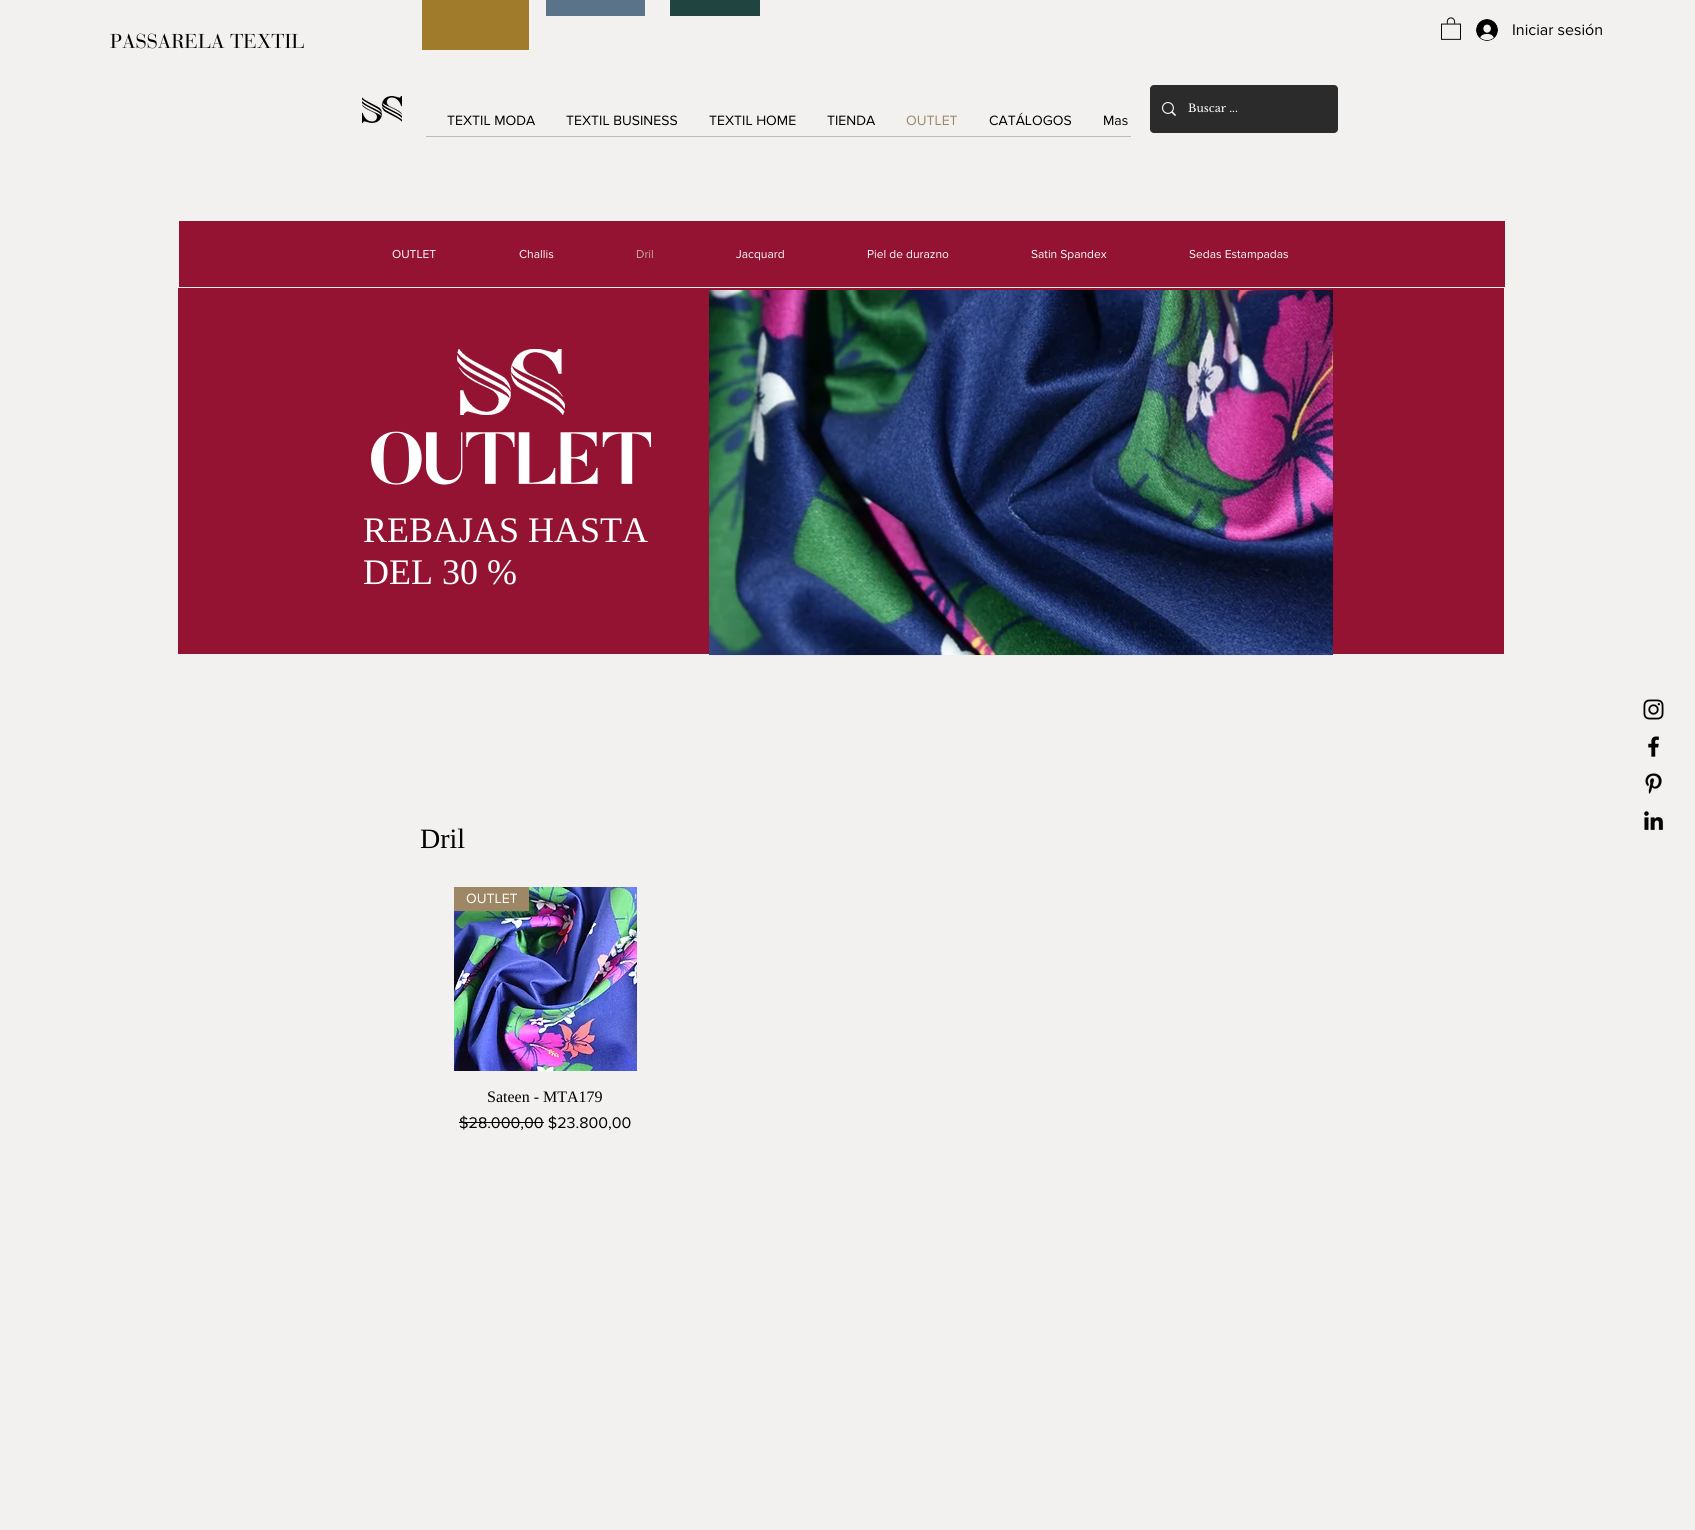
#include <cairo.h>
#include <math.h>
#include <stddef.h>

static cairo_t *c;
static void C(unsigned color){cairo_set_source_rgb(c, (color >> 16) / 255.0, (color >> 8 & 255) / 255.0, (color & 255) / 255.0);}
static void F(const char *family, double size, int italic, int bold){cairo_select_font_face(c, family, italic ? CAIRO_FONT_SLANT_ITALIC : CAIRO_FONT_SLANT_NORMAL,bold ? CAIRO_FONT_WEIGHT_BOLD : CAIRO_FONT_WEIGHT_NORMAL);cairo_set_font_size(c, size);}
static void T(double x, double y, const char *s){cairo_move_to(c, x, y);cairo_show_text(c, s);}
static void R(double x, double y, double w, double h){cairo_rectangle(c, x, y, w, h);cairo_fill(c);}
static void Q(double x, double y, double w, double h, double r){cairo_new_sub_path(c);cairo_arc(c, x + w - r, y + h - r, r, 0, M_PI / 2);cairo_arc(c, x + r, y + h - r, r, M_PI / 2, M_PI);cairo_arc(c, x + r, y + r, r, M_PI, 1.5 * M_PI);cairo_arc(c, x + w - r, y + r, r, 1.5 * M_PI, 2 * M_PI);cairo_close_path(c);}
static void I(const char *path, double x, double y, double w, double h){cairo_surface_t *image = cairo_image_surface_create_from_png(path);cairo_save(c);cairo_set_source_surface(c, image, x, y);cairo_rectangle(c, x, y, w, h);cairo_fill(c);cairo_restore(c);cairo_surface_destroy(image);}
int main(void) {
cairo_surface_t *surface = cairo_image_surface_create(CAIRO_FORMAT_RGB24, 1695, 1530);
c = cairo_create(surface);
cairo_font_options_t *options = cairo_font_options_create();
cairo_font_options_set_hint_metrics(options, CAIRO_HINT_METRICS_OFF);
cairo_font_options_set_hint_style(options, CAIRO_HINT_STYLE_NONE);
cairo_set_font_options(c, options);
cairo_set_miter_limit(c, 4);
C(0xf2f1f0);
cairo_paint(c);
I("1.png",1441,17,20,23);
I("2.png",1476,19,22,22);
F("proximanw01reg",16,0,0);
C(0x000000);
T(1512,35,"Iniciar sesión");
I("3.png",110,33,194,16);
C(0xa17b2c);
R(422,0,107,50);
C(0x5b7388);
R(546,0,99,16);
C(0x204540);
R(670,0,90,16);
I("4.png",362,96,40,27);
C(0x2b2b2b);
Q(1150,85,188,48,4);
cairo_fill(c);
I("5.png",1162,102,14,14);
F("Libre Baskerville",11,0,0);
C(0xffffff);
T(1188,112,"Buscar ...");
F("proximanw01reg",14,0,0);
C(0x000000);
T(447,125,"TEXTIL MODA");
T(566,125,"TEXTIL BUSINESS");
T(709,125,"TEXTIL HOME");
T(827,125,"TIENDA");
C(0x9e8765);
T(906,125,"OUTLET");
C(0x000000);
T(989,125,"CATÁLOGOS");
T(1103,125,"Mas");
C(0xbdbbb9);
R(426,136,705,1);
C(0x941232);
R(179,221,1326,66);
F("proximanw01reg",12,0,0);
C(0xffffff);
T(392,258,"OUTLET");
T(519,258,"Challis");
C(0xbeb09c);
T(636,258,"Dril");
C(0xffffff);
T(736,258,"Jacquard");
T(867,258,"Piel de durazno");
T(1031,258,"Satin Spandex");
T(1189,258,"Sedas Estampadas");
C(0x941232);
R(178,288,1326,366);
I("6.png",457,349,108,66);
F("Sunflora",70,0,0);
C(0xffffff);
T(369,484,"OUTLET");
F("Liberation Serif",36,0,0);
T(363,542,"REBAJAS HASTA");
T(363,584,"DEL 30 %");
I("7.png",709,290,625,366);
F("Liberation Serif",28,0,0);
C(0x000000);
T(420,848,"Dril");
I("8.png",454,887,183,184);
C(0x9e8765);
R(454,887,75,24);
F("proximanw01reg",14,0,0);
C(0xffffff);
T(466,903,"OUTLET");
F("Liberation Serif",16,0,0);
C(0x000000);
T(487,1102,"Sateen - MTA179");
F("proximanw01reg",16,0,0);
T(459,1128,"$28.000,00 $23.800,00");
R(459,1122,85,1);
I("9.png",1643,699,21,21);
I("10.png",1648,736,11,21);
I("11.png",1645,773,17,21);
I("12.png",1644,811,20,20);
cairo_surface_write_to_png(surface, "o.png");
cairo_font_options_destroy(options);
cairo_destroy(c);
cairo_surface_destroy(surface);
return 0;
}
